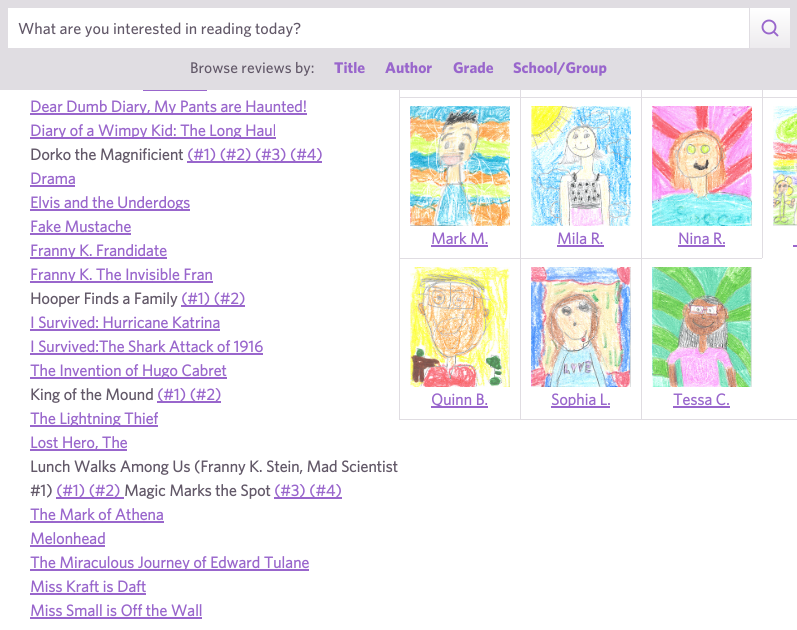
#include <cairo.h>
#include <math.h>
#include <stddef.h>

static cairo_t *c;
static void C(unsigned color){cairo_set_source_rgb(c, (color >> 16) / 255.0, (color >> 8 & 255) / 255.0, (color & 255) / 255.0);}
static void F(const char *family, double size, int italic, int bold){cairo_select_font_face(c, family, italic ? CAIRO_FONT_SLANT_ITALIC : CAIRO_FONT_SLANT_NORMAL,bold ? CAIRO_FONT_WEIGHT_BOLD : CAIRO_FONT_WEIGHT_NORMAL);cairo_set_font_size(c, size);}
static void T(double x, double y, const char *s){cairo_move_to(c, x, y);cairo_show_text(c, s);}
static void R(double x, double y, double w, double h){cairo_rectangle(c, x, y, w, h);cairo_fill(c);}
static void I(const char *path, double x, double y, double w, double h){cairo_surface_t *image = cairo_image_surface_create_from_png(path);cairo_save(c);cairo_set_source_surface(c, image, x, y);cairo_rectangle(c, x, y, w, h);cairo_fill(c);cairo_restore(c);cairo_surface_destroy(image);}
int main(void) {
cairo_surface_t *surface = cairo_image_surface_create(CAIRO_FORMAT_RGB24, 797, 630);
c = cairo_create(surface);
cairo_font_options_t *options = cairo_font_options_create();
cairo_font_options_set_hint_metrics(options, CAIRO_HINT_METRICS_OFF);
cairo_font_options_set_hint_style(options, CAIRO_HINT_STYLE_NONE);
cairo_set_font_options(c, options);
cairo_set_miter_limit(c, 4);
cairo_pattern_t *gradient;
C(0xffffff);
cairo_paint(c);
cairo_rectangle(c,399.5,-.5,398,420);
C(0xe0dde2);
cairo_set_line_width(c,1);
cairo_stroke(c);
R(0,0,797,90);
C(0xffffff);
R(8,8,741,40);
F("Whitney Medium",16,0,0);
C(0x625868);
T(18,34,"What are you interested in reading today?");
gradient = cairo_pattern_create_linear(751,48,751,-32);
cairo_pattern_add_color_stop_rgba(gradient,0,0.929,0.922,0.933,1);
cairo_pattern_add_color_stop_rgba(gradient,.5,1,1,1,1);
cairo_set_source(c,gradient);
cairo_pattern_destroy(gradient);
R(750,8,40,40);
cairo_new_path(c);
cairo_arc(c,769,27,6.5,0,2 * M_PI);
C(0x9966cc);
cairo_set_line_width(c,1.9);
cairo_stroke(c);
cairo_new_path(c);
cairo_move_to(c,777.5,35.5);
cairo_line_to(c,774,32);
cairo_set_line_cap(c,CAIRO_LINE_CAP_ROUND);
cairo_set_line_join(c,CAIRO_LINE_JOIN_ROUND);
cairo_stroke(c);
F("Whitney Medium",15.5,0,0);
C(0x625868);
T(190,73,"Browse reviews by:");
F("Whitney",15.5,0,1);
C(0x9966cc);
T(334,73,"Title");
T(385,73,"Author");
T(453,73,"Grade");
T(513,73,"School/Group");
R(143,90,64,1);
R(30,113,277,2);
F("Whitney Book",16,0,1);
T(30,112,"Dear Dumb Diary, My Pants are Haunted!");
R(30,137,246,2);
T(30,136,"Diary of a Wimpy Kid: The Long Haul");
C(0x625868);
T(30,160,"Dorko the Magnificient");
C(0x9966cc);
R(187,161,135,2);
T(187,160,"(#1) (#2) (#3) (#4)");
T(30,184,"Drama");
R(30,185,45,2);
R(30,209,160,2);
T(30,208,"Elvis and the Underdogs");
T(30,232,"Fake Mustache");
R(30,233,101,2);
R(30,257,137,2);
T(30,256,"Franny K. Frandidate");
R(30,281,183,2);
T(30,280,"Franny K. The Invisible Fran");
C(0x625868);
T(30,304,"Hooper Finds a Family");
C(0x9966cc);
R(181,305,64,2);
T(181,304,"(#1) (#2)");
T(30,328,"I Survived: Hurricane Katrina");
R(30,329,190,2);
T(30,352,"I Survived:The Shark Attack of 1916");
R(30,353,233,2);
R(30,377,197,2);
T(30,376,"The Invention of Hugo Cabret");
C(0x625868);
T(30,400,"King of the Mound");
C(0x9966cc);
R(157,401,64,2);
T(157,400,"(#1) (#2)");
R(30,425,128,2);
T(30,424,"The Lightning Thief");
R(30,449,97,2);
T(30,448,"Lost Hero, The");
C(0x625868);
T(30,472,"Lunch Walks Among Us (Franny K. Stein, Mad Scientist");
T(30,496,"#1)");
C(0x9966cc);
R(56,497,68,2);
T(56,496,"(#1) (#2)");
C(0x625868);
T(124,496,"Magic Marks the Spot");
C(0x9966cc);
R(274,497,68,2);
T(274,496,"(#3) (#4)");
T(30,520,"The Mark of Athena");
R(30,521,134,2);
T(30,544,"Melonhead");
R(30,545,75,2);
R(30,569,279,2);
T(30,568,"The Miraculous Journey of Edward Tulane");
T(30,592,"Miss Kraft is Daft");
R(30,593,116,2);
T(30,616,"Miss Small is Off the Wall");
R(30,617,172,2);
C(0xe0dde2);
R(520,90,1,7);
R(641,90,1,7);
R(762,90,1,7);
R(400,97,397,1);
I("1.png",410,106,100,120);
C(0x9966cc);
T(431,244,"Mark M.");
R(431,245,57,2);
C(0xe0dde2);
R(520,97,1,161);
I("2.png",531,106,100,120);
C(0x9966cc);
T(557,244,"Mila R.");
R(557,245,47,2);
C(0xe0dde2);
R(641,97,1,161);
I("3.png",652,106,100,120);
C(0x9966cc);
T(678,244,"Nina R.");
R(678,245,47,2);
C(0xe0dde2);
R(762,97,1,161);
I("4.png",773,106,24,120);
C(0x9966cc);
R(793,245,4,2);
C(0xe0dde2);
R(400,258,362,1);
I("5.png",410,267,100,120);
C(0x9966cc);
R(431,406,57,2);
T(431,405,"Quinn B.");
C(0xe0dde2);
R(520,258,1,161);
I("6.png",531,267,100,120);
C(0x9966cc);
R(551,406,59,2);
T(551,405,"Sophia L.");
C(0xe0dde2);
R(641,258,1,161);
I("7.png",652,267,100,120);
C(0x9966cc);
T(673,405,"Tessa C.");
R(673,406,57,2);
cairo_surface_write_to_png(surface, "o.png");
cairo_font_options_destroy(options);
cairo_destroy(c);
cairo_surface_destroy(surface);
return 0;
}
